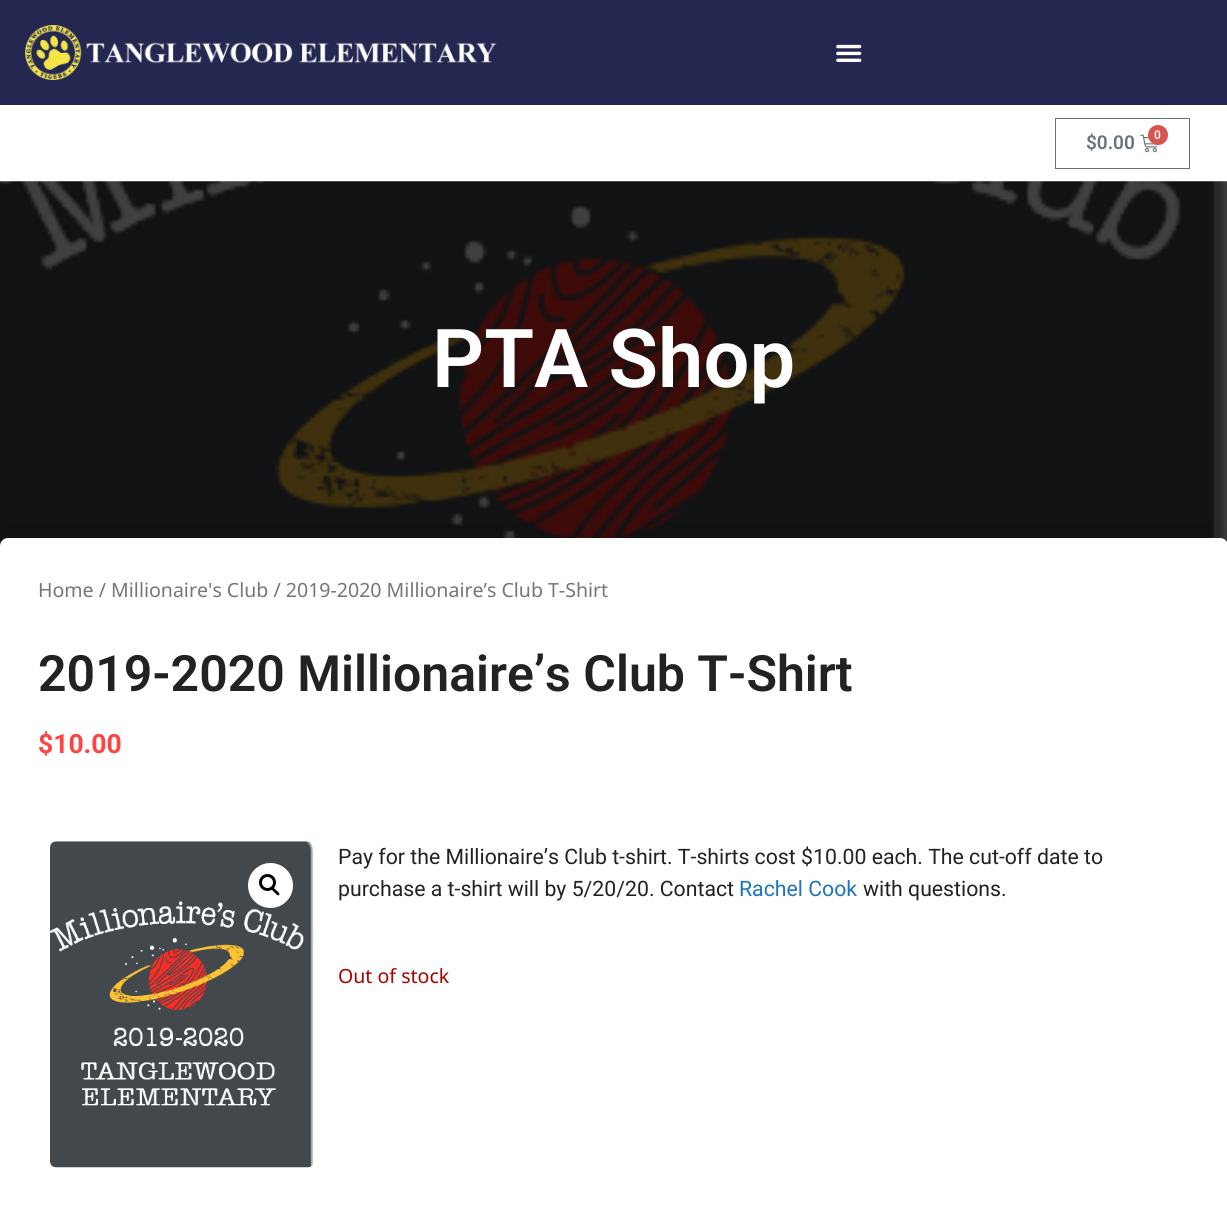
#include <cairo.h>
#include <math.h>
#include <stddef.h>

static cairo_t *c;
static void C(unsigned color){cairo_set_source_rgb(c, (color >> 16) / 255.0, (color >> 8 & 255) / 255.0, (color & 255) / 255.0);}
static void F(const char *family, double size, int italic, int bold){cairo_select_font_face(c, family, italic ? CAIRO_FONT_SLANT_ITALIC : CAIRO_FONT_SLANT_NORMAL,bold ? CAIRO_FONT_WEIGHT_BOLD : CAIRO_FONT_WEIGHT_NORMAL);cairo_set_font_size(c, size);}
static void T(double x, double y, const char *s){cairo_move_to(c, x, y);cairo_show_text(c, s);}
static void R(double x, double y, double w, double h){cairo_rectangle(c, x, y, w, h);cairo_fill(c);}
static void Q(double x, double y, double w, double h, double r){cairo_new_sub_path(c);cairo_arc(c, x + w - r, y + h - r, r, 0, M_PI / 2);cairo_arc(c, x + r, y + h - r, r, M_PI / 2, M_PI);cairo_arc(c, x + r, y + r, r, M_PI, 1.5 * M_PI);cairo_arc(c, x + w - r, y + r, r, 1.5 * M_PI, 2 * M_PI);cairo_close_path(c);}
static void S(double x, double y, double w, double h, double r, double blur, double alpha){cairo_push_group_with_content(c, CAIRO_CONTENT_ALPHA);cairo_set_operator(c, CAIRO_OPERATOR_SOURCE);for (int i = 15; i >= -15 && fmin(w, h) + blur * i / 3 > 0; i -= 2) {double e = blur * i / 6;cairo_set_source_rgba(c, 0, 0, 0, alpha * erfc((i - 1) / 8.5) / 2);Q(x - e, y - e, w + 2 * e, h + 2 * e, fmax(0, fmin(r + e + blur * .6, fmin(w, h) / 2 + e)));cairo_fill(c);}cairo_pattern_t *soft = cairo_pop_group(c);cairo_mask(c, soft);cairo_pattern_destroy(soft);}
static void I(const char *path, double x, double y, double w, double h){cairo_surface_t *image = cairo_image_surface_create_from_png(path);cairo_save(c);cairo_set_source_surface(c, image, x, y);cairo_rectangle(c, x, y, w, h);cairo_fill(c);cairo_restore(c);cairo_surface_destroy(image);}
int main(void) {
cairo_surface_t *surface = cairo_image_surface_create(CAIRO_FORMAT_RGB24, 1227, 1222);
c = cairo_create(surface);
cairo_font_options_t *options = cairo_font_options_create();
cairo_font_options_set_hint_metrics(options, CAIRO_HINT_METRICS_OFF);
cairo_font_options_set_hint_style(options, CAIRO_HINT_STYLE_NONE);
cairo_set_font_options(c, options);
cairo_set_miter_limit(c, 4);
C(0xffffff);
cairo_paint(c);
C(0x242750);
R(0,0,1227,105);
I("1.png",25,25,472,55);
I("2.png",836,44,26,18);
cairo_rectangle(c,1055.5,118.5,134,50);
C(0x69727d);
cairo_set_line_width(c,1);
cairo_stroke(c);
F("Roboto SemiBold",19,0,0);
T(1086,149,"$0.00");
I("3.png",1140,134,17,19);
C(0xd9534f);
cairo_arc(c,1158,135,10,0,2 * M_PI);
cairo_fill(c);
F("Roboto SemiBold",12,0,0);
C(0xffffff);
T(1154,139,"0");
I("4.png",0,181,1227,365);
F("Roboto SemiBold",81.25,0,0);
T(432,387,"PTA Shop");
C(0x000000);
S(0,538,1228,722,8,19,.13);
C(0xffffff);
Q(0,538,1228,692,8);
cairo_fill(c);
F("Noto Sans",19.55,0,0);
C(0x767676);
T(38,597,"Home / Millionaire's Club / 2019-2020 Millionaire’s Club T-Shirt");
F("Roboto SemiBold",50,0,0);
C(0x222222);
T(38,691,"2019-2020 Millionaire’s Club T-Shirt");
F("Roboto",26.5,0,1);
C(0xff4242);
T(38,753,"$10.00");
I("5.png",50,841,264,327);
C(0xffffff);
cairo_arc(c,270.5,885.5,22.5,0,2 * M_PI);
cairo_fill(c);
cairo_arc(c,267.5,882.5,7,0,2 * M_PI);
C(0x000000);
cairo_set_line_width(c,3);
cairo_stroke(c);
cairo_new_path(c);
cairo_move_to(c,272,888);
cairo_curve_to(c,273.5,886.5,275.5,890,276.5,890.5);
cairo_curve_to(c,277.5,891.5,280.5,893.5,279,895);
cairo_curve_to(c,277.5,896.5,275.5,893,274.5,892.5);
cairo_curve_to(c,274,891.5,270.5,889.5,272,888);
cairo_close_path(c);
cairo_fill(c);
F("Roboto",21.25,0,0);
C(0x222222);
T(338,864,"Pay for the Millionaire’s Club t-shirt. T-shirts cost $10.00 each. The cut-off date to");
T(338,896,"purchase a t-shirt will by 5/20/20. Contact");
C(0x1e73be);
T(739,896,"Rachel Cook");
C(0x222222);
T(863,896,"with questions.");
F("Noto Sans",19.55,0,0);
C(0xaa0000);
T(338,983,"Out of stock");
cairo_surface_write_to_png(surface, "o.png");
cairo_font_options_destroy(options);
cairo_destroy(c);
cairo_surface_destroy(surface);
return 0;
}
